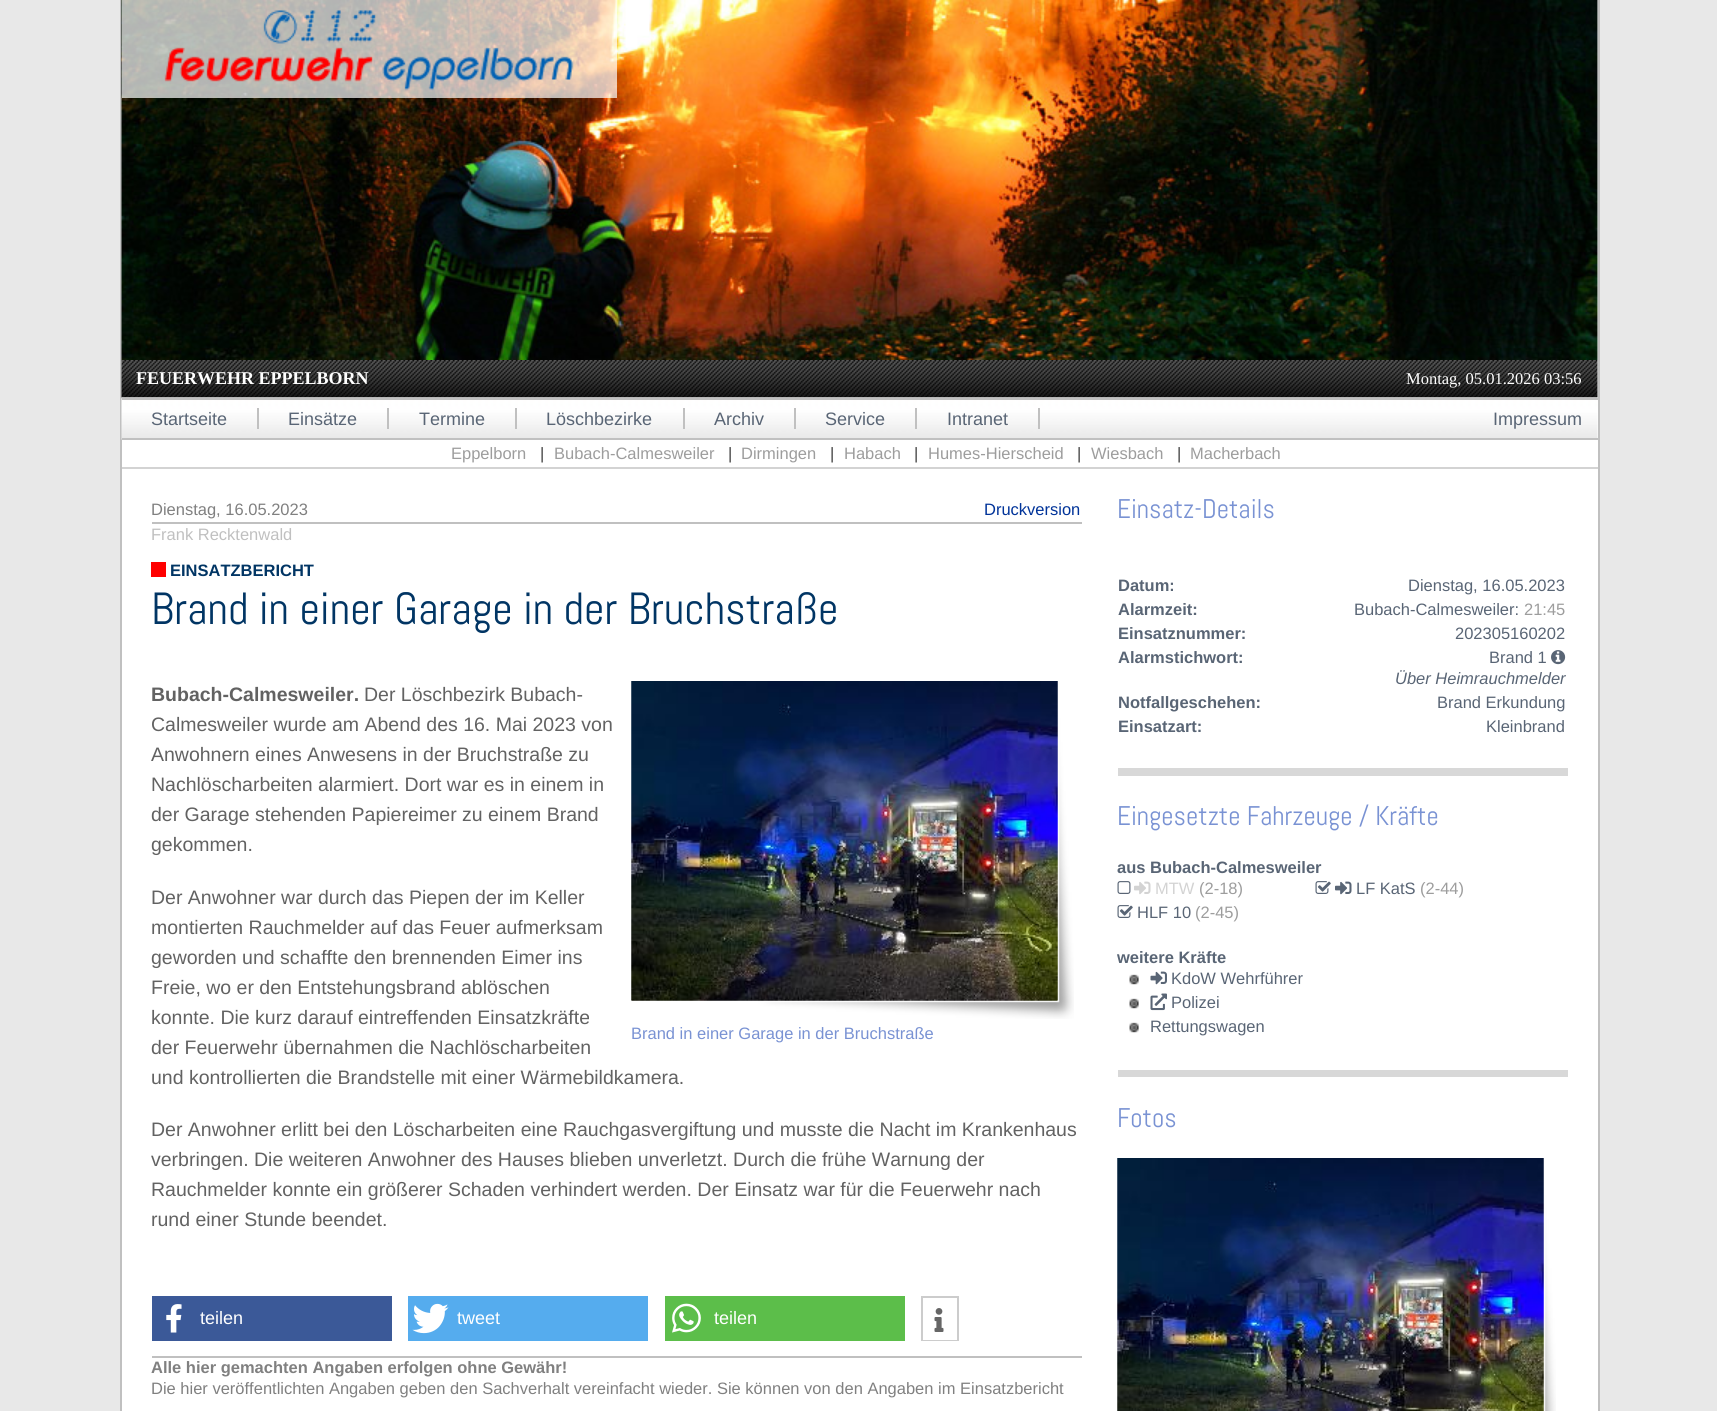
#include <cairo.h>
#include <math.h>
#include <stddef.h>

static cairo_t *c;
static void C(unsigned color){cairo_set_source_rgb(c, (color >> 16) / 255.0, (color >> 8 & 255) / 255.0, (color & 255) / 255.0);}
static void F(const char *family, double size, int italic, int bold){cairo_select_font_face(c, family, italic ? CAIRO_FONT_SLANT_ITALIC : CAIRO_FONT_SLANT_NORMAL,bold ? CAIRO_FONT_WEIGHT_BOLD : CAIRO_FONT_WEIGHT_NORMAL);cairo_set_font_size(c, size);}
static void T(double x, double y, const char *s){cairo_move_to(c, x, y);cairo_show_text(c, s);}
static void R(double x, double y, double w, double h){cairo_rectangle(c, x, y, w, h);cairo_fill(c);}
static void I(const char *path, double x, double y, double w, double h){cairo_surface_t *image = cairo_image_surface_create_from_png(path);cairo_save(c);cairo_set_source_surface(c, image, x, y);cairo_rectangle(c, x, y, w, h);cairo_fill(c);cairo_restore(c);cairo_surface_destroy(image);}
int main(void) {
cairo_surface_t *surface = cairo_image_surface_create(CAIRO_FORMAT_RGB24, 1717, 1411);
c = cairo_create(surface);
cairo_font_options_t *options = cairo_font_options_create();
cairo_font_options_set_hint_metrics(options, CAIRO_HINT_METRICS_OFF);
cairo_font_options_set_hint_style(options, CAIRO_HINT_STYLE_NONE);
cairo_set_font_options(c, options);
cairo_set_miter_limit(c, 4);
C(0xe8e8e8);
cairo_paint(c);
C(0xffffff);
R(122,0,1476,1411);
C(0xc0c0c0);
R(1598,0,2,1411);
R(120,0,2,1411);
I("1.png",121,0,1477,360);
cairo_set_source_rgba(c,1,1,1,0.7);
R(122,0,495,98);
I("2.png",164,10,410,81);
I("3.png",121,360,1477,38);
F("Liberation Serif",18,0,1);
C(0xffffff);
T(136,384,"FEUERWEHR EPPELBORN");
F("Liberation Serif",16.5,0,0);
T(1406,384,"Montag, 05.01.2026 03:56");
I("4.png",121,397,1477,43);
C(0xc0c0c0);
R(122,398,1476,2);
R(122,438,1476,2);
R(257,408,2,21);
F("Liberation Sans",18,0,0);
C(0x596575);
T(151,425,"Startseite");
C(0xc0c0c0);
R(387,408,2,21);
C(0x596575);
T(288,425,"Einsätze");
C(0xc0c0c0);
R(515,408,2,21);
C(0x596575);
T(419,425,"Termine");
C(0xc0c0c0);
R(683,408,2,21);
C(0x596575);
T(546,425,"Löschbezirke");
C(0xc0c0c0);
R(794,408,2,21);
C(0x596575);
T(714,425,"Archiv");
C(0xc0c0c0);
R(915,408,2,21);
C(0x596575);
T(825,425,"Service");
C(0xc0c0c0);
R(1038,408,2,21);
C(0x596575);
T(947,425,"Intranet");
T(1493,425,"Impressum");
C(0xd3d3d3);
R(122,467,1476,2);
F("Liberation Sans",16.5,0,0);
C(0x9d9d9d);
T(451,459,"Eppelborn");
C(0x444444);
T(540,459,"|");
C(0x9d9d9d);
T(554,459,"Bubach-Calmesweiler");
C(0x444444);
T(728,459,"|");
C(0x9d9d9d);
T(741,459,"Dirmingen");
C(0x444444);
T(830,459,"|");
C(0x9d9d9d);
T(844,459,"Habach");
C(0x444444);
T(914,459,"|");
C(0x9d9d9d);
T(928,459,"Humes-Hierscheid");
C(0x444444);
T(1077,459,"|");
C(0x9d9d9d);
T(1091,459,"Wiesbach");
C(0x444444);
T(1177,459,"|");
C(0x9d9d9d);
T(1190,459,"Macherbach");
C(0xc0c0c0);
R(152,522,930,2);
C(0x808080);
T(151,515,"Dienstag, 16.05.2023");
C(0x003399);
T(984,515,"Druckversion");
C(0xc0c0c0);
T(151,540,"Frank Recktenwald");
C(0xff0000);
R(151,562,15,15);
F("Liberation Sans",16.5,0,1);
C(0x013564);
T(170,576,"EINSATZBERICHT");
F("Abel",45,0,0);
T(151,624,"Brand in einer Garage in der Bruchstraße");
F("Liberation Sans",19.5,0,1);
C(0x626262);
T(151,701,"Bubach-Calmesweiler.");
F("Liberation Sans",19.5,0,0);
T(364,701,"Der Löschbezirk Bubach-");
T(151,731,"Calmesweiler wurde am Abend des 16. Mai 2023 von");
T(151,761,"Anwohnern eines Anwesens in der Bruchstraße zu");
T(151,791,"Nachlöscharbeiten alarmiert. Dort war es in einem in");
T(151,821,"der Garage stehenden Papiereimer zu einem Brand");
T(151,851,"gekommen.");
T(151,904,"Der Anwohner war durch das Piepen der im Keller");
T(151,934,"montierten Rauchmelder auf das Feuer aufmerksam");
T(151,964,"geworden und schaffte den brennenden Eimer ins");
T(151,994,"Freie, wo er den Entstehungsbrand ablöschen");
T(151,1024,"konnte. Die kurz darauf eintreffenden Einsatzkräfte");
T(151,1054,"der Feuerwehr übernahmen die Nachlöscharbeiten");
T(151,1084,"und kontrollierten die Brandstelle mit einer Wärmebildkamera.");
I("5.png",631,681,443,338);
I("6.png",631,681,427,320);
F("Liberation Sans",16.5,0,0);
C(0x7992d3);
T(631,1039,"Brand in einer Garage in der Bruchstraße");
F("Liberation Sans",19.5,0,0);
C(0x626262);
T(151,1136,"Der Anwohner erlitt bei den Löscharbeiten eine Rauchgasvergiftung und musste die Nacht im Krankenhaus");
T(151,1166,"verbringen. Die weiteren Anwohner des Hauses blieben unverletzt. Durch die frühe Warnung der");
T(151,1196,"Rauchmelder konnte ein größerer Schaden verhindert werden. Der Einsatz war für die Feuerwehr nach");
T(151,1226,"rund einer Stunde beendet.");
C(0x3b5998);
R(152,1296,240,45);
I("7.png",166,1304,16,29);
F("Liberation Sans",18,0,0);
C(0xffffff);
T(200,1324,"teilen");
C(0x55acee);
R(408,1296,240,45);
I("8.png",412,1303,37,31);
C(0xffffff);
T(457,1324,"tweet");
C(0x5cbe4a);
R(665,1296,240,45);
I("9.png",672,1303,29,30);
C(0xffffff);
T(714,1324,"teilen");
cairo_rectangle(c,922,1297,36,43);
C(0xcccccc);
cairo_stroke(c);
C(0xffffff);
R(923,1339,34,1);
I("10.png",934,1308,10,24);
C(0xc0c0c0);
R(152,1356,930,2);
F("Liberation Sans",16.5,0,1);
C(0x808080);
T(151,1373,"Alle hier gemachten Angaben erfolgen ohne Gewähr!");
F("Liberation Sans",16.5,0,0);
T(151,1394,"Die hier veröffentlichten Angaben geben den Sachverhalt vereinfacht wieder. Sie können von den Angaben im Einsatzbericht");
C(0xd8d8d8);
R(1118,768,450,8);
F("Abel",27,0,0);
C(0x7992d3);
T(1117,518,"Einsatz-Details");
F("Liberation Sans",16.5,0,1);
C(0x596575);
T(1118,591,"Datum:");
F("Liberation Sans",16.5,0,0);
T(1408,591,"Dienstag, 16.05.2023");
F("Liberation Sans",16.5,0,1);
T(1118,615,"Alarmzeit:");
F("Liberation Sans",16.5,0,0);
T(1354,615,"Bubach-Calmesweiler:");
C(0x9d9d9d);
T(1524,615,"21:45");
F("Liberation Sans",16.5,0,1);
C(0x596575);
T(1118,639,"Einsatznummer:");
F("Liberation Sans",16.5,0,0);
T(1455,639,"202305160202");
F("Liberation Sans",16.5,0,1);
T(1118,663,"Alarmstichwort:");
F("Liberation Sans",16.5,0,0);
T(1489,663,"Brand 1");
I("11.png",1551,650,15,15);
F("Liberation Sans",16.5,1,0);
T(1395,684,"Über Heimrauchmelder");
F("Liberation Sans",16.5,0,1);
T(1118,708,"Notfallgeschehen:");
F("Liberation Sans",16.5,0,0);
T(1437,708,"Brand Erkundung");
F("Liberation Sans",16.5,0,1);
T(1118,732,"Einsatzart:");
F("Liberation Sans",16.5,0,0);
T(1486,732,"Kleinbrand");
C(0xd8d8d8);
R(1118,1070,450,7);
F("Abel",27,0,0);
C(0x7992d3);
T(1117,825,"Eingesetzte Fahrzeuge / Kräfte");
F("Liberation Sans",16.5,0,1);
C(0x596575);
T(1117,873,"aus Bubach-Calmesweiler");
I("12.png",1117,881,14,13);
I("13.png",1134,881,17,14);
F("Liberation Sans",16.5,0,0);
C(0xd3d3d3);
T(1155,894,"MTW");
C(0x9d9d9d);
T(1199,894,"(2-18)");
I("14.png",1315,881,16,13);
I("15.png",1335,881,17,14);
C(0x596575);
T(1356,894,"LF KatS");
C(0x9d9d9d);
T(1420,894,"(2-44)");
I("14.png",1117,905,16,13);
C(0x596575);
T(1137,918,"HLF 10");
C(0x9d9d9d);
T(1195,918,"(2-45)");
F("Liberation Sans",16.5,0,1);
C(0x596575);
T(1117,963,"weitere Kräfte");
I("16.png",1129,974,10,11);
I("17.png",1150,971,17,14);
F("Liberation Sans",16.5,0,0);
T(1171,984,"KdoW Wehrführer");
I("16.png",1129,998,10,11);
I("18.png",1150,993,17,18);
T(1171,1008,"Polizei");
I("16.png",1129,1022,10,11);
T(1150,1032,"Rettungswagen");
F("Abel",27,0,0);
C(0x7992d3);
T(1117,1127,"Fotos");
I("19.png",1117,1158,439,253);
I("20.png",1117,1158,427,253);
cairo_surface_write_to_png(surface, "o.png");
cairo_font_options_destroy(options);
cairo_destroy(c);
cairo_surface_destroy(surface);
return 0;
}
